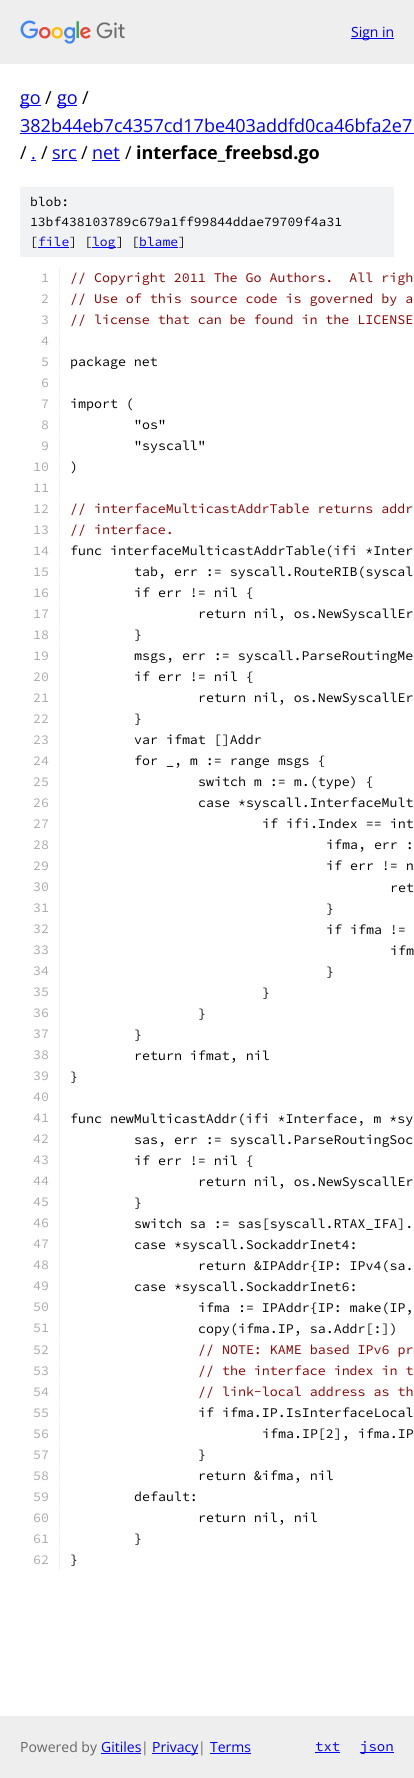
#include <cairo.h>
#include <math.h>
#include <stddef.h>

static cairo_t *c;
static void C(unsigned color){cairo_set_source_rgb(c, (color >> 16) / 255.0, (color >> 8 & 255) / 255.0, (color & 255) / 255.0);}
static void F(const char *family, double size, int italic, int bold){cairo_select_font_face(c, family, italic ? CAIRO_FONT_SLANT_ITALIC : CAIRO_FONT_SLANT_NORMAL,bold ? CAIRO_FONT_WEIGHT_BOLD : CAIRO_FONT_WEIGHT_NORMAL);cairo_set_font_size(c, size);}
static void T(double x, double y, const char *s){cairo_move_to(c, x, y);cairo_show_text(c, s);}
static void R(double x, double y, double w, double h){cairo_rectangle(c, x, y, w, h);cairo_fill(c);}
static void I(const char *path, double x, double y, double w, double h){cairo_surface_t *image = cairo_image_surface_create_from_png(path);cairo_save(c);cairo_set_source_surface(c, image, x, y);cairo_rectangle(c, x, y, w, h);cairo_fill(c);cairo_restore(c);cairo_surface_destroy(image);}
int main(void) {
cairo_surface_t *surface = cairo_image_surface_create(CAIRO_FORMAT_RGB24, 414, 1778);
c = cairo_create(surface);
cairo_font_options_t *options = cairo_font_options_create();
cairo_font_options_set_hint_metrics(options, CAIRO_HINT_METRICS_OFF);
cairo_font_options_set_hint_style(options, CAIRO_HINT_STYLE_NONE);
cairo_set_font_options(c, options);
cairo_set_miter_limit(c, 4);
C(0xffffff);
cairo_paint(c);
C(0xeeeeee);
R(0,0,414,64);
I("1.png",20,20,105,24);
C(0x0000ee);
R(351,38,43,1);
F("Open Sans",14,0,0);
T(351,37,"Sign in");
R(20,105,21,1);
F("Open Sans",18,0,0);
T(20,104,"go");
C(0x000000);
T(45,104,"/");
C(0x0000ee);
R(57,105,20,1);
T(57,104,"go");
C(0x000000);
T(82,104,"/");
C(0x0000ee);
T(20,132,"382b44eb7c4357cd17be403addfd0ca46bfa2e7");
R(20,133,394,1);
C(0x000000);
T(20,159,"/");
C(0x0000ee);
T(31,159,".");
R(31,160,5,1);
C(0x000000);
T(41,159,"/");
C(0x0000ee);
T(52,159,"src");
R(52,160,25,1);
C(0x000000);
T(81,159,"/");
C(0x0000ee);
T(92,159,"net");
R(92,160,28,1);
C(0x000000);
T(125,159,"/");
F("Open Sans",18,0,1);
T(136,159,"interface_freebsd.go");
C(0xf1f2f3);
R(20,187,374,70);
F("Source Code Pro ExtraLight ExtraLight",13,0,0);
C(0x000000);
T(30,206,"blob:");
T(30,226,"13bf438103789c679a1ff99844ddae79709f4a31");
T(30,246,"[");
C(0x0000ee);
T(38,246,"file");
R(38,247,31,1);
C(0x000000);
T(69,246,"] [");
C(0x0000ee);
R(92,247,24,1);
T(92,246,"log");
C(0x000000);
T(116,246,"] [");
C(0x0000ee);
T(139,246,"blame");
R(139,247,39,1);
C(0x000000);
T(178,246,"]");
C(0xf1f2f3);
R(59,268,1,20);
F("Source Code Pro ExtraLight ExtraLight",13.3,0,0);
C(0xaaaaaa);
T(41,282,"1");
C(0x880000);
T(70,282,"// Copyright 2011 The Go Authors.  All righ");
C(0xf1f2f3);
R(59,289,1,20);
C(0xaaaaaa);
T(41,303,"2");
C(0x880000);
T(70,303,"// Use of this source code is governed by a");
C(0xf1f2f3);
R(59,310,1,20);
C(0xaaaaaa);
T(41,324,"3");
C(0x880000);
T(70,324,"// license that can be found in the LICENSE");
C(0xf1f2f3);
R(59,331,1,20);
C(0xaaaaaa);
T(41,345,"4");
C(0xf1f2f3);
R(59,352,1,20);
C(0xaaaaaa);
T(41,366,"5");
C(0x000000);
T(70,366,"package net");
C(0xf1f2f3);
R(59,373,1,20);
C(0xaaaaaa);
T(41,387,"6");
C(0xf1f2f3);
R(59,394,1,20);
C(0xaaaaaa);
T(41,408,"7");
C(0x000000);
T(70,408,"import (");
C(0xf1f2f3);
R(59,415,1,20);
C(0xaaaaaa);
T(41,429,"8");
C(0x000000);
T(134,429,"\"os\"");
C(0xf1f2f3);
R(59,436,1,20);
C(0xaaaaaa);
T(41,450,"9");
C(0x000000);
T(134,450,"\"syscall\"");
C(0xf1f2f3);
R(59,457,1,20);
C(0xaaaaaa);
T(33,471,"10");
C(0x000000);
T(70,471,")");
C(0xf1f2f3);
R(59,478,1,20);
C(0xaaaaaa);
T(33,492,"11");
C(0xf1f2f3);
R(59,499,1,20);
C(0xaaaaaa);
T(33,513,"12");
C(0x880000);
T(70,513,"// interfaceMulticastAddrTable returns addr");
C(0xf1f2f3);
R(59,520,1,20);
C(0xaaaaaa);
T(33,534,"13");
C(0x880000);
T(70,534,"// interface.");
C(0xf1f2f3);
R(59,541,1,20);
C(0xaaaaaa);
T(33,555,"14");
C(0x000000);
T(70,555,"func interfaceMulticastAddrTable(ifi *Inter");
C(0xf1f2f3);
R(59,562,1,20);
C(0xaaaaaa);
T(33,576,"15");
C(0x000000);
T(134,576,"tab, err := syscall.RouteRIB(syscal");
C(0xf1f2f3);
R(59,583,1,20);
C(0xaaaaaa);
T(33,597,"16");
C(0x000000);
T(134,597,"if err != nil {");
C(0xf1f2f3);
R(59,604,1,20);
C(0xaaaaaa);
T(33,618,"17");
C(0x000000);
T(198,618,"return nil, os.NewSyscallEr");
C(0xf1f2f3);
R(59,625,1,20);
C(0xaaaaaa);
T(33,639,"18");
C(0x000000);
T(134,639,"}");
C(0xf1f2f3);
R(59,646,1,693);
C(0xaaaaaa);
T(33,660,"19");
C(0x000000);
T(134,660,"msgs, err := syscall.ParseRoutingMe");
C(0xaaaaaa);
T(33,681,"20");
C(0x000000);
T(134,681,"if err != nil {");
C(0xaaaaaa);
T(33,702,"21");
C(0x000000);
T(198,702,"return nil, os.NewSyscallEr");
C(0xaaaaaa);
T(33,723,"22");
C(0x000000);
T(134,723,"}");
C(0xaaaaaa);
T(33,744,"23");
C(0x000000);
T(134,744,"var ifmat []Addr");
C(0xaaaaaa);
T(33,765,"24");
C(0x000000);
T(134,765,"for _, m := range msgs {");
C(0xaaaaaa);
T(33,786,"25");
C(0x000000);
T(198,786,"switch m := m.(type) {");
C(0xaaaaaa);
T(33,807,"26");
C(0x000000);
T(198,807,"case *syscall.InterfaceMult");
C(0xaaaaaa);
T(33,828,"27");
C(0x000000);
T(262,828,"if ifi.Index == int");
C(0xaaaaaa);
T(33,849,"28");
C(0x000000);
T(326,849,"ifma, err :");
C(0xaaaaaa);
T(33,870,"29");
C(0x000000);
T(326,870,"if err != n");
C(0xaaaaaa);
T(33,891,"30");
C(0x000000);
T(390,892,"ret");
C(0xaaaaaa);
T(33,912,"31");
C(0x000000);
T(326,913,"}");
C(0xaaaaaa);
T(33,933,"32");
C(0x000000);
T(326,934,"if ifma !=");
C(0xaaaaaa);
T(33,954,"33");
C(0x000000);
T(390,955,"ifm");
C(0xaaaaaa);
T(33,975,"34");
C(0x000000);
T(326,976,"}");
C(0xaaaaaa);
T(33,996,"35");
C(0x000000);
T(262,997,"}");
C(0xaaaaaa);
T(33,1017,"36");
C(0x000000);
T(198,1018,"}");
C(0xaaaaaa);
T(33,1038,"37");
C(0x000000);
T(134,1039,"}");
C(0xaaaaaa);
T(33,1059,"38");
C(0x000000);
T(134,1060,"return ifmat, nil");
C(0xaaaaaa);
T(33,1080,"39");
C(0x000000);
T(70,1081,"}");
C(0xaaaaaa);
T(33,1101,"40");
T(33,1122,"41");
C(0x000000);
T(70,1123,"func newMulticastAddr(ifi *Interface, m *sy");
C(0xaaaaaa);
T(33,1143,"42");
C(0x000000);
T(134,1144,"sas, err := syscall.ParseRoutingSoc");
C(0xaaaaaa);
T(33,1164,"43");
C(0x000000);
T(134,1165,"if err != nil {");
C(0xaaaaaa);
T(33,1185,"44");
C(0x000000);
T(198,1186,"return nil, os.NewSyscallEr");
C(0xaaaaaa);
T(33,1206,"45");
C(0x000000);
T(134,1207,"}");
C(0xaaaaaa);
T(33,1227,"46");
C(0x000000);
T(134,1228,"switch sa := sas[syscall.RTAX_IFA].");
C(0xaaaaaa);
T(33,1248,"47");
C(0x000000);
T(134,1249,"case *syscall.SockaddrInet4:");
C(0xaaaaaa);
T(33,1269,"48");
C(0x000000);
T(198,1270,"return &IPAddr{IP: IPv4(sa.");
C(0xaaaaaa);
T(33,1290,"49");
C(0x000000);
T(134,1291,"case *syscall.SockaddrInet6:");
C(0xaaaaaa);
T(33,1311,"50");
C(0x000000);
T(198,1312,"ifma := IPAddr{IP: make(IP,");
C(0xaaaaaa);
T(33,1332,"51");
C(0x000000);
T(198,1333,"copy(ifma.IP, sa.Addr[:])");
C(0xf1f2f3);
R(59,1340,1,20);
C(0xaaaaaa);
T(33,1354,"52");
C(0x880000);
T(198,1354,"// NOTE: KAME based IPv6 pr");
C(0xf1f2f3);
R(59,1361,1,20);
C(0xaaaaaa);
T(33,1375,"53");
C(0x880000);
T(198,1375,"// the interface index in t");
C(0xf1f2f3);
R(59,1382,1,20);
C(0xaaaaaa);
T(33,1396,"54");
C(0x880000);
T(198,1396,"// link-local address as th");
C(0xf1f2f3);
R(59,1403,1,20);
C(0xaaaaaa);
T(33,1417,"55");
C(0x000000);
T(198,1417,"if ifma.IP.IsInterfaceLocal");
C(0xf1f2f3);
R(59,1424,1,20);
C(0xaaaaaa);
T(33,1438,"56");
C(0x000000);
T(262,1438,"ifma.IP[2], ifma.IP");
C(0xf1f2f3);
R(59,1445,1,20);
C(0xaaaaaa);
T(33,1459,"57");
C(0x000000);
T(198,1459,"}");
C(0xf1f2f3);
R(59,1466,1,20);
C(0xaaaaaa);
T(33,1480,"58");
C(0x000000);
T(198,1480,"return &ifma, nil");
C(0xf1f2f3);
R(59,1487,1,20);
C(0xaaaaaa);
T(33,1501,"59");
C(0x000000);
T(134,1501,"default:");
C(0xf1f2f3);
R(59,1508,1,20);
C(0xaaaaaa);
T(33,1522,"60");
C(0x000000);
T(198,1522,"return nil, nil");
C(0xf1f2f3);
R(59,1529,1,20);
C(0xaaaaaa);
T(33,1543,"61");
C(0x000000);
T(134,1543,"}");
C(0xf1f2f3);
R(59,1550,1,20);
C(0xaaaaaa);
T(33,1564,"62");
C(0x000000);
T(70,1564,"}");
C(0xeeeeee);
R(0,1716,414,62);
F("Open Sans",14,0,0);
C(0x666666);
T(20,1752,"Powered by");
C(0x0000ee);
T(101,1752,"Gitiles");
R(101,1753,40,1);
C(0x666666);
T(141,1752,"|");
C(0x0000ee);
R(152,1753,46,1);
T(152,1752,"Privacy");
C(0x666666);
T(198,1752,"|");
C(0x0000ee);
T(210,1752,"Terms");
R(210,1753,41,1);
F("Source Code Pro ExtraLight ExtraLight",14,0,0);
T(315,1751,"txt");
R(315,1752,25,1);
R(360,1752,34,1);
T(360,1751,"json");
cairo_surface_write_to_png(surface, "o.png");
cairo_font_options_destroy(options);
cairo_destroy(c);
cairo_surface_destroy(surface);
return 0;
}
